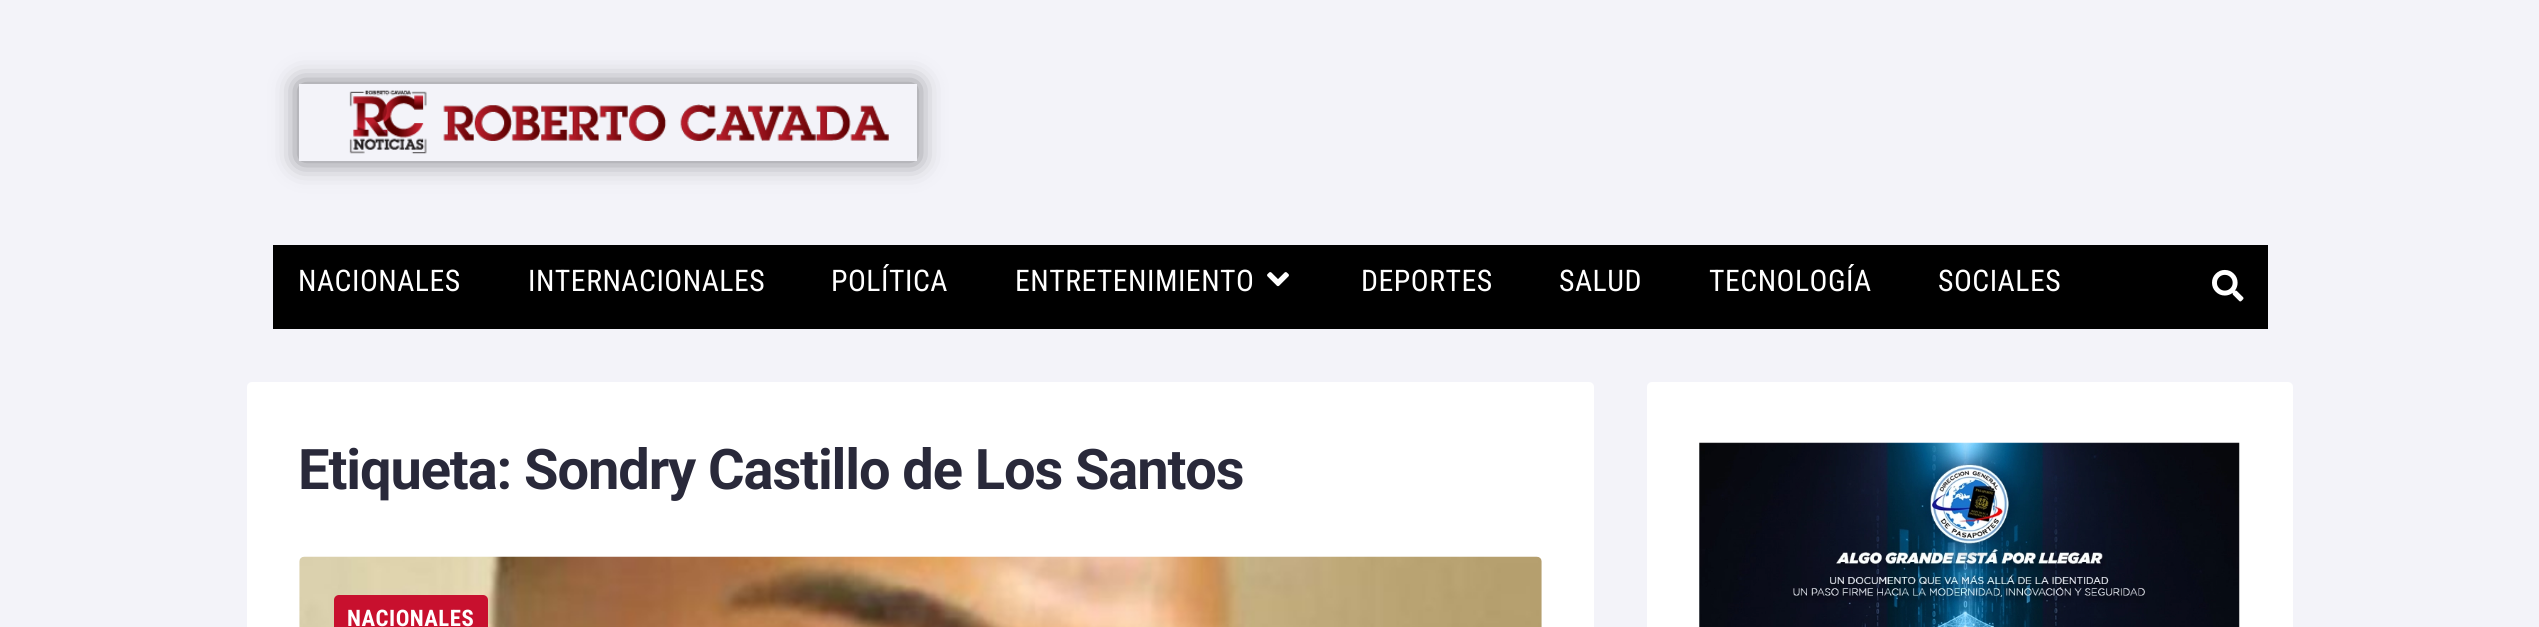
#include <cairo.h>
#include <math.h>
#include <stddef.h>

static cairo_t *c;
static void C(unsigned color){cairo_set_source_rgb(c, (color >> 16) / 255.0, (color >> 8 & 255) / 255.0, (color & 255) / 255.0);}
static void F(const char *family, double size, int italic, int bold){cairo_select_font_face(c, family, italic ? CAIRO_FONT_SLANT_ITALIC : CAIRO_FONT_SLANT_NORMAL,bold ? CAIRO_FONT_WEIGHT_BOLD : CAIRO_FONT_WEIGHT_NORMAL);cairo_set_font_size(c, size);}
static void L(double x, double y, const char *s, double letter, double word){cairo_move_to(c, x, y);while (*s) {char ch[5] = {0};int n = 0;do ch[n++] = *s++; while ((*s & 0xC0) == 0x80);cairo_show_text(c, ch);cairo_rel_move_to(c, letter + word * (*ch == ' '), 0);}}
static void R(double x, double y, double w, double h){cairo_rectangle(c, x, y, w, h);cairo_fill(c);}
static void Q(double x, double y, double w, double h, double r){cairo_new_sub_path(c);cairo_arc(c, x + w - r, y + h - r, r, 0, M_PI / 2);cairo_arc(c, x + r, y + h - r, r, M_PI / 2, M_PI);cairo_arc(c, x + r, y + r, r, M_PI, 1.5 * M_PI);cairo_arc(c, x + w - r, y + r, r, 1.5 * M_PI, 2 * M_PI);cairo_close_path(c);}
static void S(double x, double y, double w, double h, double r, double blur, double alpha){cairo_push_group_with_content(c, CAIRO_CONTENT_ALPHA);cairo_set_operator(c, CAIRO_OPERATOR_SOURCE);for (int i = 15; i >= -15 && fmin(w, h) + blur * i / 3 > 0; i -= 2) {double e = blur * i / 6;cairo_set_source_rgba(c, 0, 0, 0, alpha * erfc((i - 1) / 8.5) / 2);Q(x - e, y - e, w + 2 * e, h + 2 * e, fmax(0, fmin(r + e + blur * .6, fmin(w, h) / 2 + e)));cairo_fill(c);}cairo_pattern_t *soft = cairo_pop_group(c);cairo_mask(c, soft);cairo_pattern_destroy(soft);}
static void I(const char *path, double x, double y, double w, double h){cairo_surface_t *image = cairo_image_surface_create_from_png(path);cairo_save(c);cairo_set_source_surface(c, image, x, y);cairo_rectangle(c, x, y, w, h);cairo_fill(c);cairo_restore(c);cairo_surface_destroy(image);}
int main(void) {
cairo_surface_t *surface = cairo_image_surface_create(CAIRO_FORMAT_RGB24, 2539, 627);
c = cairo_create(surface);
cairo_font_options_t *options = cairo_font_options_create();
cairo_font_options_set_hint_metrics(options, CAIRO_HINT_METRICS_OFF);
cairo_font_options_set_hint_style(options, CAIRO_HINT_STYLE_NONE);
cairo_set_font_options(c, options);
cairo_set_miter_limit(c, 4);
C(0xf3f3f9);
cairo_paint(c);
C(0x000000);
S(299,84,618,77,0,13,.5);
C(0xf3f3f9);
R(299,84,618,77);
I("1.png",349,90,540,64);
C(0x000000);
R(273,245,1995,84);
F("Roboto Condensed",29.75,0,0);
C(0xffffff);
L(298,291,"NACIONALES",.5,0);
L(528,291,"INTERNACIONALES",.5,0);
L(831,291,"POLÍTICA",.5,0);
L(1015,291,"ENTRETENIMIENTO",.5,0);
I("2.png",1267,272,22,15);
L(1361,291,"DEPORTES",.5,0);
L(1559,291,"SALUD",.5,0);
L(1709,291,"TECNOLOGÍA",.5,0);
L(1938,291,"SOCIALES",.5,0);
I("3.png",2212,269,32,33);
Q(247,382,1347,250,5);
cairo_fill(c);
F("Roboto",56,0,1);
C(0x29293a);
L(298,489,"Etiqueta: Sondry Castillo de Los Santos",-1.1,0);
I("4.png",299,556,1243,71);
C(0xc8102e);
Q(334,595,154,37,5);
cairo_fill(c);
F("Roboto Condensed",22.75,0,1);
C(0xffffff);
L(347,626,"NACIONALES",.5,0);
Q(1647,382,646,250,5);
cairo_fill(c);
I("5.png",1699,442,541,185);
cairo_surface_write_to_png(surface, "o.png");
cairo_font_options_destroy(options);
cairo_destroy(c);
cairo_surface_destroy(surface);
return 0;
}
